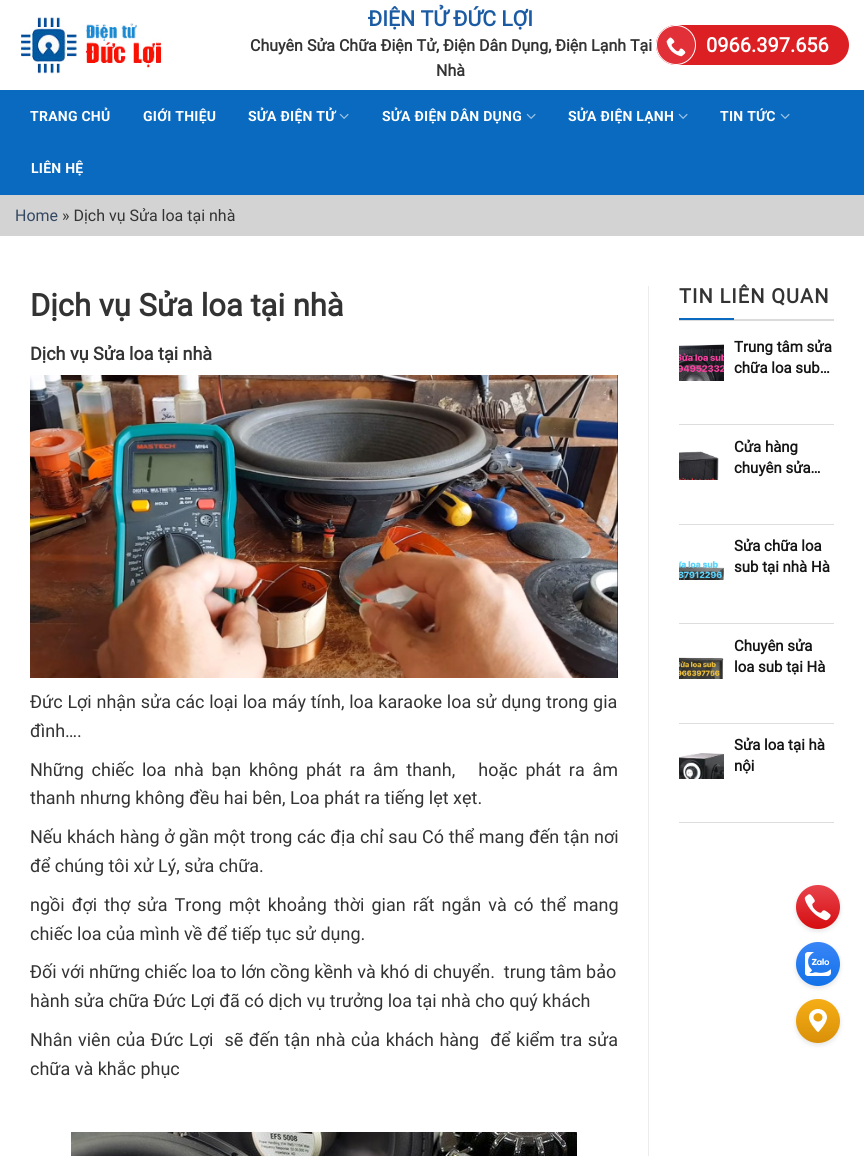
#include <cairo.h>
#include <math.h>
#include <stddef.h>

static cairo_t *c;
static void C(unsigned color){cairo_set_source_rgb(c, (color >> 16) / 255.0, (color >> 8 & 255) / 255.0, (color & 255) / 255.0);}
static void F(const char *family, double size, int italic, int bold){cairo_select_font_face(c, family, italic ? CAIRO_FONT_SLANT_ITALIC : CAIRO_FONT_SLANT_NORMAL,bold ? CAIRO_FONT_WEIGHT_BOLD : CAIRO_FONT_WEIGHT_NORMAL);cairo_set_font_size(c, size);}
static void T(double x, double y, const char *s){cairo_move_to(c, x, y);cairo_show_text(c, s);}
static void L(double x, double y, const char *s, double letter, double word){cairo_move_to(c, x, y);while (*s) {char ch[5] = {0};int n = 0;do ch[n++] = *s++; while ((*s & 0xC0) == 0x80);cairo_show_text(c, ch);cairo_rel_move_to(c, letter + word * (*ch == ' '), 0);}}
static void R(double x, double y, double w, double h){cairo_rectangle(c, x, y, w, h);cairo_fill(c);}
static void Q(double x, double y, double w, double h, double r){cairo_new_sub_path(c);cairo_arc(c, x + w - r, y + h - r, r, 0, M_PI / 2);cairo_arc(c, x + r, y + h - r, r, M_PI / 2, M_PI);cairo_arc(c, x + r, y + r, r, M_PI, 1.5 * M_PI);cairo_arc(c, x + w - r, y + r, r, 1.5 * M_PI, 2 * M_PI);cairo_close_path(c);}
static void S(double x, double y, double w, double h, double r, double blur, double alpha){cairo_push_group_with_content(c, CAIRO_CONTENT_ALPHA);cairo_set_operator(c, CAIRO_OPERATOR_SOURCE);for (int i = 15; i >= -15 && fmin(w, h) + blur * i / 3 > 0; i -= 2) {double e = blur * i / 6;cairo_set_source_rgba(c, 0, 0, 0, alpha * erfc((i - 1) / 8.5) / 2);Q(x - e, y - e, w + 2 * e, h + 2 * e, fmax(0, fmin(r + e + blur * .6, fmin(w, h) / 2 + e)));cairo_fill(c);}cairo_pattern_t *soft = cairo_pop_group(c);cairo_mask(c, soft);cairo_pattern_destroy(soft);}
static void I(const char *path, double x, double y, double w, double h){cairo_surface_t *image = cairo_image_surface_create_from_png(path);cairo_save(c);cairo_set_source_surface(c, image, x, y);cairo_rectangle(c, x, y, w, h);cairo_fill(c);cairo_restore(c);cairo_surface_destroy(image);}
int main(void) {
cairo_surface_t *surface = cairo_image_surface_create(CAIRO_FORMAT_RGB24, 864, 1156);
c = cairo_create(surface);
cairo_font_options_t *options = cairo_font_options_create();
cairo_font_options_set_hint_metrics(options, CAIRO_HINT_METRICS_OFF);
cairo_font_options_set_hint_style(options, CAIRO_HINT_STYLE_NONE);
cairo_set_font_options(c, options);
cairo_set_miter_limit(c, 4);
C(0xffffff);
cairo_paint(c);
I("1.png",21,17,141,57);
F("Roboto",21.25,0,1);
C(0x1b5ba3);
T(368,26,"ĐIỆN TỬ ĐỨC LỢI");
F("Roboto",16,0,1);
C(0x333333);
T(250,51,"Chuyên Sửa Chữa Điện Tử, Điện Dân Dụng, Điện Lạnh Tại");
T(436,76,"Nhà");
C(0xdb1f23);
Q(656,25,193,40,20);
cairo_fill(c);
C(0xe13037);
cairo_arc(c,676,45,19.5,0,2 * M_PI);
cairo_fill_preserve(c);
C(0xffffff);
cairo_set_line_width(c,1);
cairo_stroke(c);
I("2.png",666,37,20,20);
F("Roboto",20,0,1);
T(706,52,"0966.397.656");
C(0x096abf);
R(0,90,864,105);
F("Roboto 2",14,0,1);
C(0xffffff);
L(30,121,"TRANG CHỦ",.25,0);
L(143,121,"GIỚI THIỆU",.25,0);
L(248,121,"SỬA ĐIỆN TỬ",.25,0);
I("3.png",339,113,10,6);
L(382,121,"SỬA ĐIỆN DÂN DỤNG",.25,0);
I("3.png",526,113,10,6);
L(568,121,"SỬA ĐIỆN LẠNH",.25,0);
I("3.png",678,113,10,6);
L(720,121,"TIN TỨC",.25,0);
I("3.png",780,113,10,6);
L(31,173,"LIÊN HỆ",.25,0);
C(0xd3d3d3);
R(0,195,864,41);
F("Roboto",16,0,0);
C(0x334862);
T(15,221,"Home");
C(0x333333);
T(62,221,"» Dịch vụ Sửa loa tại nhà");
F("Roboto",31,0,1);
T(30,316,"Dịch vụ Sửa loa tại nhà");
F("Roboto",18,0,1);
T(30,360,"Dịch vụ Sửa loa tại nhà");
I("4.png",30,375,588,303);
F("Roboto",18,0,0);
L(30,708,"Đức Lợi nhận sửa các loại loa máy tính, loa karaoke loa sử dụng trong gia",0,.3);
T(30,737,"đình….");
L(30,776,"Những chiếc loa nhà bạn không phát ra âm thanh,   hoặc phát ra âm",0,3.25);
T(30,804,"thanh nhưng không đều hai bên, Loa phát ra tiếng lẹt xẹt.");
L(30,843,"Nếu khách hàng ở gần một trong các địa chỉ sau Có thể mang đến tận nơi",0,.2);
T(30,872,"để chúng tôi xử Lý, sửa chữa.");
L(30,911,"ngồi đợi thợ sửa Trong một khoảng thời gian rất ngắn và có thể mang",0,2.6);
T(30,940,"chiếc loa của mình về để tiếp tục sử dụng.");
T(30,978,"Đối với những chiếc loa to lớn cồng kềnh và khó di chuyển.  trung tâm bảo");
T(30,1007,"hành sửa chữa Đức Lợi đã có dịch vụ trưởng loa tại nhà cho quý khách");
L(30,1046,"Nhân viên của Đức Lợi  sẽ đến tận nhà của khách hàng  để kiểm tra sửa",0,1.1);
T(30,1075,"chữa và khắc phục");
I("5.png",71,1132,506,24);
C(0xececec);
R(648,286,1,870);
F("Roboto",20,0,1);
C(0x333333);
L(679,303,"TIN LIÊN QUAN",1,0);
C(0xdbdbdb);
R(679,319,155,2);
C(0x096abf);
R(679,318,55,2);
C(0xdddddd);
R(679,424,155,1);
I("6.png",679,344,45,37);
F("Roboto",15,0,1);
C(0x141414);
T(734,352,"Trung tâm sửa");
T(734,373,"chữa loa sub…");
C(0xdddddd);
R(679,524,155,1);
I("7.png",679,451,40,29);
C(0x141414);
T(734,452,"Cửa hàng");
T(734,473,"chuyên sửa…");
C(0xdddddd);
R(679,623,155,1);
I("8.png",679,561,45,19);
C(0x141414);
T(734,551,"Sửa chữa loa");
T(734,572,"sub tại nhà Hà");
C(0xdddddd);
R(679,723,155,1);
I("9.png",679,657,45,22);
C(0x141414);
T(734,651,"Chuyên sửa");
T(734,672,"loa sub tại Hà");
C(0xdddddd);
R(679,822,155,1);
I("10.png",679,753,45,26);
C(0x141414);
T(734,750,"Sửa loa tại hà");
T(734,771,"nội");
C(0x000000);
S(796,887,44,44,22,2.5,.11);
I("11.png",796,885,44,44);
S(796,944,44,44,22,2.5,.11);
I("12.png",796,942,44,44);
S(796,1001,44,44,22,2.5,.11);
I("13.png",796,999,44,44);
cairo_surface_write_to_png(surface, "o.png");
cairo_font_options_destroy(options);
cairo_destroy(c);
cairo_surface_destroy(surface);
return 0;
}
